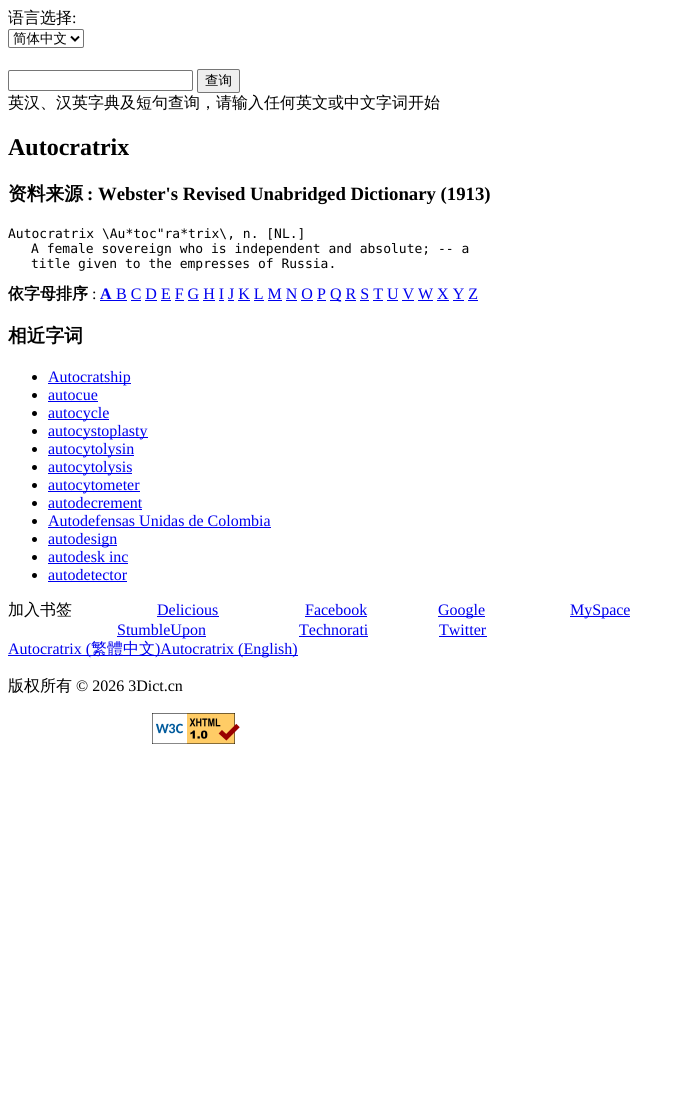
#include <cairo.h>
#include <math.h>
#include <stddef.h>

static cairo_t *c;
static void C(unsigned color){cairo_set_source_rgb(c, (color >> 16) / 255.0, (color >> 8 & 255) / 255.0, (color & 255) / 255.0);}
static void F(const char *family, double size, int italic, int bold){cairo_select_font_face(c, family, italic ? CAIRO_FONT_SLANT_ITALIC : CAIRO_FONT_SLANT_NORMAL,bold ? CAIRO_FONT_WEIGHT_BOLD : CAIRO_FONT_WEIGHT_NORMAL);cairo_set_font_size(c, size);}
static void T(double x, double y, const char *s){cairo_move_to(c, x, y);cairo_show_text(c, s);}
static void R(double x, double y, double w, double h){cairo_rectangle(c, x, y, w, h);cairo_fill(c);}
static void Q(double x, double y, double w, double h, double r){cairo_new_sub_path(c);cairo_arc(c, x + w - r, y + h - r, r, 0, M_PI / 2);cairo_arc(c, x + r, y + h - r, r, M_PI / 2, M_PI);cairo_arc(c, x + r, y + r, r, M_PI, 1.5 * M_PI);cairo_arc(c, x + w - r, y + r, r, 1.5 * M_PI, 2 * M_PI);cairo_close_path(c);}
static void I(const char *path, double x, double y, double w, double h){cairo_surface_t *image = cairo_image_surface_create_from_png(path);cairo_save(c);cairo_set_source_surface(c, image, x, y);cairo_rectangle(c, x, y, w, h);cairo_fill(c);cairo_restore(c);cairo_surface_destroy(image);}
int main(void) {
cairo_surface_t *surface = cairo_image_surface_create(CAIRO_FORMAT_RGB24, 690, 1095);
c = cairo_create(surface);
cairo_font_options_t *options = cairo_font_options_create();
cairo_font_options_set_hint_metrics(options, CAIRO_HINT_METRICS_OFF);
cairo_font_options_set_hint_style(options, CAIRO_HINT_STYLE_NONE);
cairo_set_font_options(c, options);
cairo_set_miter_limit(c, 4);
C(0xffffff);
cairo_paint(c);
F("WenQuanYi Zen Hei Medium",16,0,0);
C(0x000000);
T(8,23,"语言选择");
F("Liberation Serif",16,0,0);
T(72,23,":");
Q(8.5,29.5,75,18,1.5);
C(0x767676);
cairo_set_line_width(c,1);
cairo_stroke(c);
cairo_new_path(c);
cairo_move_to(c,71,36.5);
cairo_line_to(c,75,40.5);
cairo_line_to(c,79,36.5);
C(0x000000);
cairo_set_line_width(c,2);
cairo_stroke(c);
F("WenQuanYi Zen Hei Medium",13.5,0,0);
T(13,43,"简体中文");
Q(8.5,70.5,184,20,1.5);
C(0x767676);
cairo_set_line_width(c,1);
cairo_stroke(c);
C(0xefefef);
Q(197.5,69.5,42,23,1.5);
cairo_fill_preserve(c);
C(0x767676);
cairo_stroke(c);
C(0x000000);
T(205,85,"查询");
F("WenQuanYi Zen Hei Medium",16,0,0);
T(8,108,"英汉、汉英字典及短句查询，请输入任何英文或中文字词开始");
F("Liberation Serif",24,0,1);
T(8,155,"Autocratrix");
F("WenQuanYi Zen Hei",18.75,0,1);
T(8,200,"资料来源");
F("Liberation Serif",18.75,0,1);
T(87,200,": Webster's Revised Unabridged Dictionary (1913)");
F("DejaVu Sans Mono",13,0,0);
T(8,238,"Autocratrix \\Au*toc\"ra*trix\\, n. [NL.]");
T(31,253,"A female sovereign who is independent and absolute; -- a");
T(31,268,"title given to the empresses of Russia.");
F("WenQuanYi Zen Hei",16,0,1);
T(8,299,"依字母排序");
F("Liberation Serif",16,0,0);
T(92,299,":");
F("Liberation Serif",16,0,1);
C(0x0000ee);
T(100,299,"A");
R(100,300,27,1);
F("Liberation Serif",16,0,0);
T(116,299,"B C D E F G H I J K L M N O P");
R(330,300,11,1);
T(330,299,"Q R S T U V W X Y Z");
R(131,300,10,1);
R(145,300,12,1);
R(161,300,10,1);
R(175,300,9,1);
R(188,300,11,1);
R(203,300,12,1);
R(219,300,5,1);
R(228,300,6,1);
R(238,300,12,1);
R(254,300,10,1);
R(268,300,14,1);
R(286,300,11,1);
R(301,300,12,1);
R(317,300,9,1);
R(345,300,11,1);
R(360,300,9,1);
R(373,300,10,1);
R(387,300,11,1);
R(402,300,12,1);
R(418,300,15,1);
R(437,300,12,1);
R(453,300,11,1);
R(468,300,10,1);
F("WenQuanYi Zen Hei",18.75,0,1);
C(0x000000);
T(8,342,"相近字词");
cairo_new_path(c);
cairo_arc(c,34.5,377.5,2.5,0,2 * M_PI);
cairo_fill(c);
C(0x0000ee);
R(48,383,83,1);
F("Liberation Serif",16,0,0);
T(48,382,"Autocratship");
C(0x000000);
cairo_new_path(c);
cairo_arc(c,34.5,395.5,2.5,0,2 * M_PI);
cairo_fill(c);
C(0x0000ee);
T(48,400,"autocue");
R(48,401,50,1);
C(0x000000);
cairo_new_path(c);
cairo_arc(c,34.5,413.5,2.5,0,2 * M_PI);
cairo_fill(c);
C(0x0000ee);
R(48,419,61,1);
T(48,418,"autocycle");
C(0x000000);
cairo_new_path(c);
cairo_arc(c,34.5,431.5,2.5,0,2 * M_PI);
cairo_fill(c);
C(0x0000ee);
R(48,437,100,1);
T(48,436,"autocystoplasty");
C(0x000000);
cairo_new_path(c);
cairo_arc(c,34.5,449.5,2.5,0,2 * M_PI);
cairo_fill(c);
C(0x0000ee);
R(48,455,86,1);
T(48,454,"autocytolysin");
C(0x000000);
cairo_new_path(c);
cairo_arc(c,34.5,467.5,2.5,0,2 * M_PI);
cairo_fill(c);
C(0x0000ee);
R(48,473,84,1);
T(48,472,"autocytolysis");
C(0x000000);
cairo_new_path(c);
cairo_arc(c,34.5,485.5,2.5,0,2 * M_PI);
cairo_fill(c);
C(0x0000ee);
R(48,491,92,1);
T(48,490,"autocytometer");
C(0x000000);
cairo_new_path(c);
cairo_arc(c,34.5,503.5,2.5,0,2 * M_PI);
cairo_fill(c);
C(0x0000ee);
T(48,508,"autodecrement");
R(48,509,94,1);
C(0x000000);
cairo_new_path(c);
cairo_arc(c,34.5,521.5,2.5,0,2 * M_PI);
cairo_fill(c);
C(0x0000ee);
T(48,526,"Autodefensas Unidas de Colombia");
R(48,527,223,1);
C(0x000000);
cairo_new_path(c);
cairo_arc(c,34.5,539.5,2.5,0,2 * M_PI);
cairo_fill(c);
C(0x0000ee);
R(48,545,69,1);
T(48,544,"autodesign");
C(0x000000);
cairo_new_path(c);
cairo_arc(c,34.5,557.5,2.5,0,2 * M_PI);
cairo_fill(c);
C(0x0000ee);
T(48,562,"autodesk inc");
R(48,563,80,1);
C(0x000000);
cairo_new_path(c);
cairo_arc(c,34.5,575.5,2.5,0,2 * M_PI);
cairo_fill(c);
C(0x0000ee);
T(48,580,"autodetector");
R(48,581,79,1);
F("WenQuanYi Zen Hei Medium",16,0,0);
C(0x000000);
T(8,615,"加入书签");
F("Liberation Serif",16,0,0);
C(0x0000ee);
T(157,615,"Delicious");
R(157,616,62,1);
T(305,615,"Facebook");
R(305,616,62,1);
R(438,616,47,1);
T(438,615,"Google");
R(570,616,60,1);
T(570,615,"MySpace");
R(117,636,89,1);
T(117,635,"StumbleUpon");
T(299,635,"Technorati");
R(299,636,69,1);
T(439,635,"Twitter");
R(439,636,48,1);
R(8,655,290,1);
T(8,654,"Autocratrix (");
F("WenQuanYi Zen Hei Medium",16,0,0);
T(91,654,"繁體中文");
F("Liberation Serif",16,0,0);
T(155,654,")Autocratrix (English)");
F("WenQuanYi Zen Hei Medium",16,0,0);
C(0x000000);
T(8,691,"版权所有");
F("Liberation Serif",16,0,0);
T(76,691,"© 2026 3Dict.cn");
I("1.png",152,713,88,31);
cairo_surface_write_to_png(surface, "o.png");
cairo_font_options_destroy(options);
cairo_destroy(c);
cairo_surface_destroy(surface);
return 0;
}
